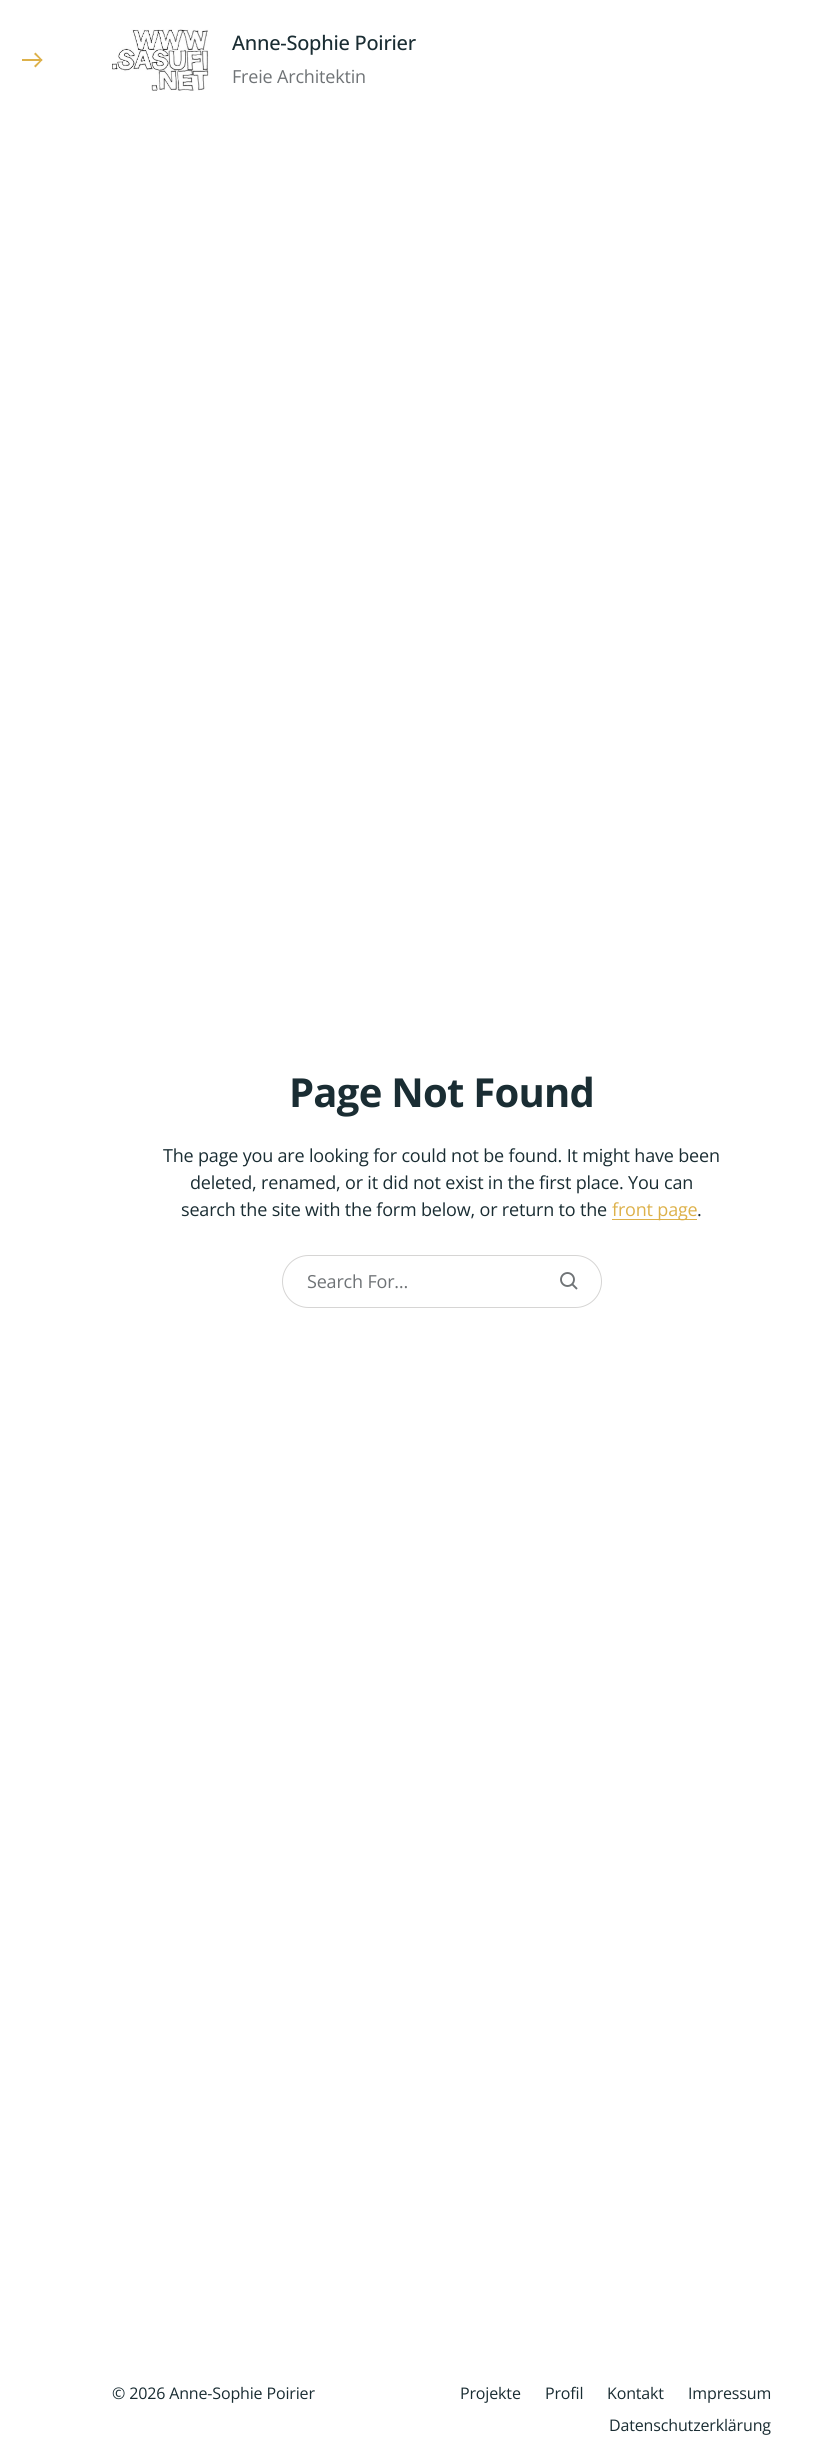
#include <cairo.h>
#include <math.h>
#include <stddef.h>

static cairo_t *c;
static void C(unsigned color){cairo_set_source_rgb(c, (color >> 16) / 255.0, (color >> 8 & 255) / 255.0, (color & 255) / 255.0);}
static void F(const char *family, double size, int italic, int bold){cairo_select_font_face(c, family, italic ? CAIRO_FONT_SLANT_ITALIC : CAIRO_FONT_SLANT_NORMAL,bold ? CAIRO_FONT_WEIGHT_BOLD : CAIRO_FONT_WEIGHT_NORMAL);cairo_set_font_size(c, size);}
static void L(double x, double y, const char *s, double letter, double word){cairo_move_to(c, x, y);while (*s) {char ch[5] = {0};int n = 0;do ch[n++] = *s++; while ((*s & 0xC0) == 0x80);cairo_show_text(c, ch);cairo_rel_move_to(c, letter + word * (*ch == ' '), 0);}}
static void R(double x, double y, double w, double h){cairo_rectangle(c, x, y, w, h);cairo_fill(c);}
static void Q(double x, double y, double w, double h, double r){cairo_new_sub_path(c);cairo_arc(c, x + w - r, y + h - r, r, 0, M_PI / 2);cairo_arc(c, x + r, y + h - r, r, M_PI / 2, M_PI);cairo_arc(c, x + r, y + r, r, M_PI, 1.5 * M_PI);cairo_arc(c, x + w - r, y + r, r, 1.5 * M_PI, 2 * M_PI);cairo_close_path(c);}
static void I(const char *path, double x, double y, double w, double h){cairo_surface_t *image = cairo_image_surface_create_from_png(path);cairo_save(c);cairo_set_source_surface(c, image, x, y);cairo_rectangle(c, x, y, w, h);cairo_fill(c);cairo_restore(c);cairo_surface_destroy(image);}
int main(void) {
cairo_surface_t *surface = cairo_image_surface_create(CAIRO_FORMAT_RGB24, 819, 2453);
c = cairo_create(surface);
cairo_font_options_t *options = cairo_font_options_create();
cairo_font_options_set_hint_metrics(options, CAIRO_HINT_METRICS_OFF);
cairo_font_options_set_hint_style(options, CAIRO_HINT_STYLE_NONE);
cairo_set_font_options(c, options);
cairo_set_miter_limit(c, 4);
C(0xffffff);
cairo_paint(c);
C(0xddb14a);
cairo_new_path(c);
cairo_move_to(c,35.5,52.5);
cairo_line_to(c,42.5,60);
cairo_line_to(c,41.5,61);
cairo_line_to(c,34,54);
cairo_close_path(c);
cairo_fill(c);
R(22,59,20,2);
cairo_new_path(c);
cairo_move_to(c,34,66);
cairo_line_to(c,41.5,59);
cairo_line_to(c,42.5,60);
cairo_line_to(c,35.5,67.5);
cairo_close_path(c);
cairo_fill(c);
I("1.png",112,29,97,62);
F("Open Sans Medium",20,0,0);
C(0x1a2d33);
L(232,50,"Anne-Sophie Poirier",-.25,0);
F("Open Sans",18,0,0);
C(0x6f7376);
L(232,83,"Freie Architektin",-.18,0);
F("Open Sans",40,0,1);
C(0x1a2d33);
L(289,1107,"Page Not Found",-.75,0);
F("Open Sans",18,0,0);
L(163,1162,"The page you are looking for could not be found. It might have been",-.18,0);
L(190,1189,"deleted, renamed, or it did not exist in the first place. You can",-.18,0);
L(181,1216,"search the site with the form below, or return to the",-.18,0);
C(0xddb14a);
R(612,1219,85,1);
L(612,1216,"front page",-.18,0);
C(0x1a2d33);
L(697,1216,".",-.18,0);
Q(282.5,1255.5,319,52,26);
C(0xd6d5d4);
cairo_set_line_width(c,1);
cairo_stroke(c);
C(0x6f7376);
L(307,1288,"Search For…",-.18,0);
cairo_new_path(c);
cairo_arc(c,567.5,1279.5,6.5,0,2 * M_PI);
cairo_set_line_width(c,1.9);
cairo_stroke(c);
cairo_new_path(c);
cairo_move_to(c,577,1289);
cairo_line_to(c,572,1284);
cairo_stroke(c);
F("Open Sans",16,0,0);
C(0x1a2d33);
L(112,2399,"© 2026 Anne-Sophie Poirier",-.15,0);
L(460,2399,"Projekte",-.15,0);
L(545,2399,"Profil",-.15,0);
L(607,2399,"Kontakt",-.15,0);
L(688,2399,"Impressum",-.15,0);
L(609,2431,"Datenschutzerklärung",-.15,0);
cairo_surface_write_to_png(surface, "o.png");
cairo_font_options_destroy(options);
cairo_destroy(c);
cairo_surface_destroy(surface);
return 0;
}
